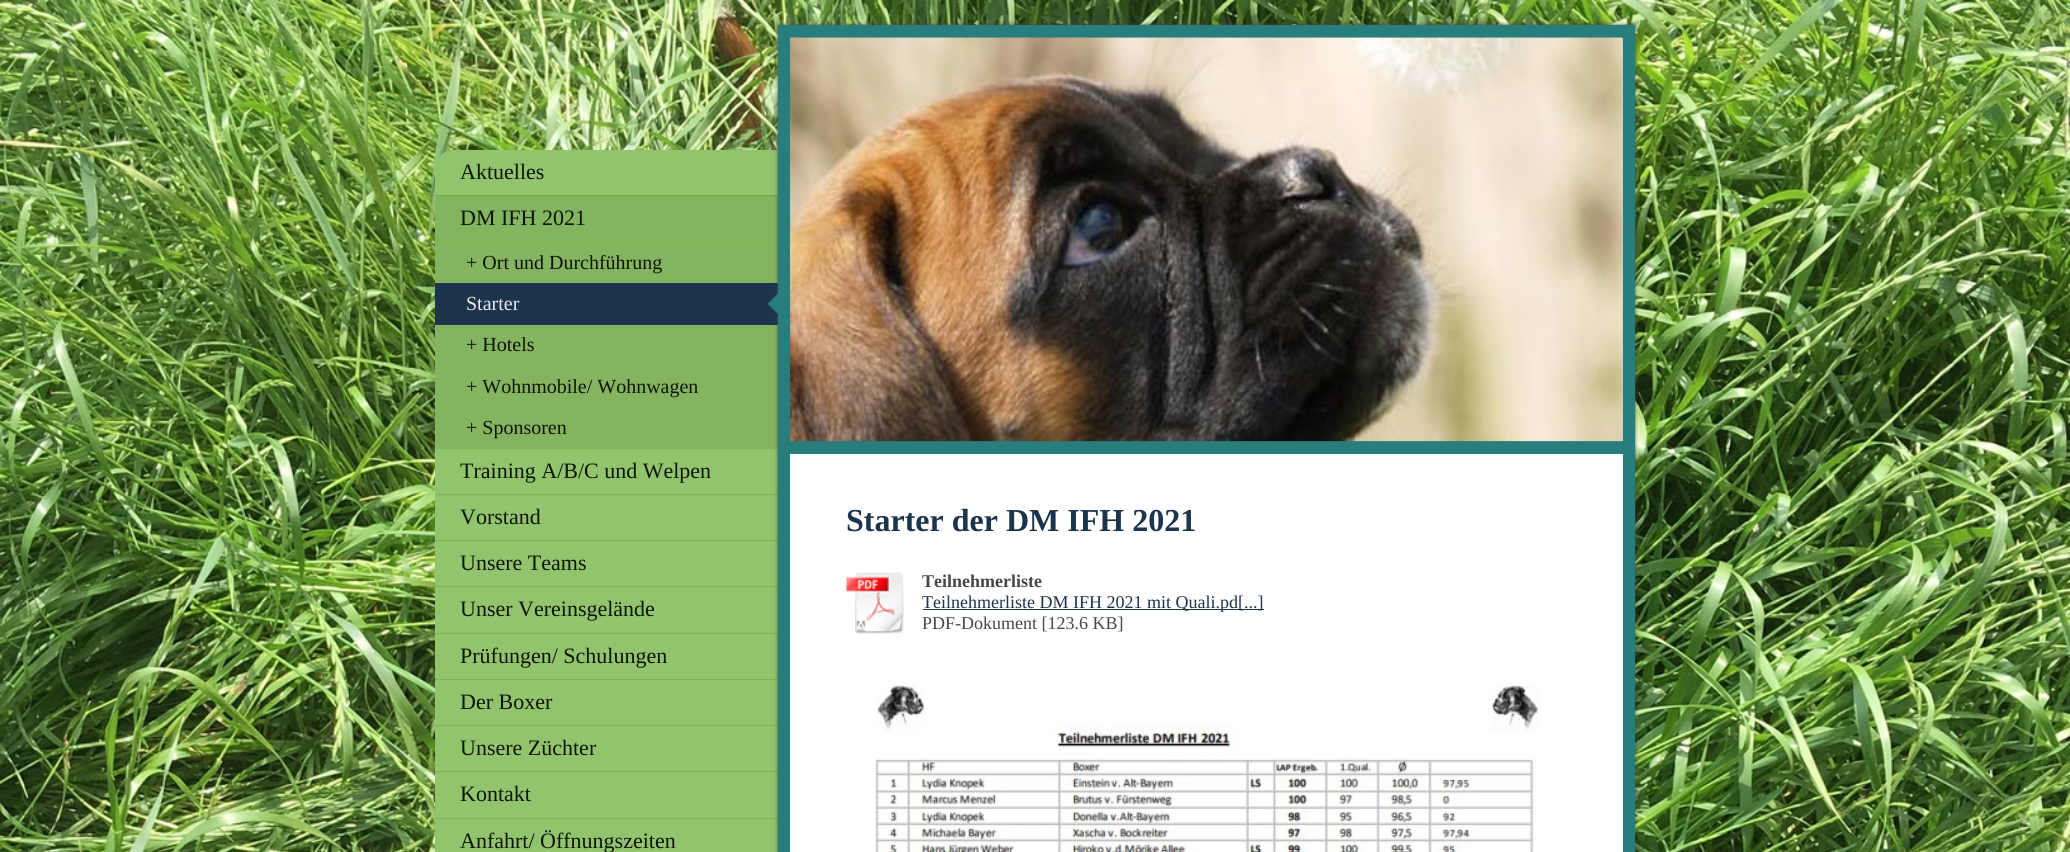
#include <cairo.h>
#include <math.h>
#include <stddef.h>

static cairo_t *c;
static void C(unsigned color){cairo_set_source_rgb(c, (color >> 16) / 255.0, (color >> 8 & 255) / 255.0, (color & 255) / 255.0);}
static void F(const char *family, double size, int italic, int bold){cairo_select_font_face(c, family, italic ? CAIRO_FONT_SLANT_ITALIC : CAIRO_FONT_SLANT_NORMAL,bold ? CAIRO_FONT_WEIGHT_BOLD : CAIRO_FONT_WEIGHT_NORMAL);cairo_set_font_size(c, size);}
static void T(double x, double y, const char *s){cairo_move_to(c, x, y);cairo_show_text(c, s);}
static void R(double x, double y, double w, double h){cairo_rectangle(c, x, y, w, h);cairo_fill(c);}
static void Q(double x, double y, double w, double h, double r){cairo_new_sub_path(c);cairo_arc(c, x + w - r, y + h - r, r, 0, M_PI / 2);cairo_arc(c, x + r, y + h - r, r, M_PI / 2, M_PI);cairo_arc(c, x + r, y + r, r, M_PI, 1.5 * M_PI);cairo_arc(c, x + w - r, y + r, r, 1.5 * M_PI, 2 * M_PI);cairo_close_path(c);}
static void S(double x, double y, double w, double h, double r, double blur, double alpha){cairo_push_group_with_content(c, CAIRO_CONTENT_ALPHA);cairo_set_operator(c, CAIRO_OPERATOR_SOURCE);for (int i = 15; i >= -15 && fmin(w, h) + blur * i / 3 > 0; i -= 2) {double e = blur * i / 6;cairo_set_source_rgba(c, 0, 0, 0, alpha * erfc((i - 1) / 8.5) / 2);Q(x - e, y - e, w + 2 * e, h + 2 * e, fmax(0, fmin(r + e + blur * .6, fmin(w, h) / 2 + e)));cairo_fill(c);}cairo_pattern_t *soft = cairo_pop_group(c);cairo_mask(c, soft);cairo_pattern_destroy(soft);}
static void I(const char *path, double x, double y, double w, double h){cairo_surface_t *image = cairo_image_surface_create_from_png(path);cairo_save(c);cairo_set_source_surface(c, image, x, y);cairo_rectangle(c, x, y, w, h);cairo_fill(c);cairo_restore(c);cairo_surface_destroy(image);}
int main(void) {
cairo_surface_t *surface = cairo_image_surface_create(CAIRO_FORMAT_RGB24, 2070, 852);
c = cairo_create(surface);
cairo_font_options_t *options = cairo_font_options_create();
cairo_font_options_set_hint_metrics(options, CAIRO_HINT_METRICS_OFF);
cairo_font_options_set_hint_style(options, CAIRO_HINT_STYLE_NONE);
cairo_set_font_options(c, options);
cairo_set_miter_limit(c, 4);
C(0xffffff);
cairo_paint(c);
I("1.png",0,0,2070,852);
C(0x91c46c);
cairo_new_path(c);
cairo_move_to(c,454,150);
cairo_line_to(c,778,150);
cairo_line_to(c,778,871);
cairo_line_to(c,435,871);
cairo_line_to(c,435,169);
cairo_curve_to(c,435,158.5,443.5,150,454,150);
cairo_close_path(c);
cairo_fill(c);
C(0x79b64c);
R(435,195,343,1);
F("Liberation Serif",22,0,0);
C(0x0f140b);
T(460,179,"Aktuelles");
cairo_set_source_rgba(c,0.306,0.459,0.196,0.2);
R(435,195,343,48);
C(0x79b64c);
R(435,241,343,1);
C(0x0f140b);
T(460,225,"DM IFH 2021");
C(0x84b460);
R(435,243,343,206);
F("Liberation Serif",20,0,0);
C(0x0f140b);
T(466,269,"+ Ort und Durchführung");
C(0x1c344c);
R(435,283,343,42);
C(0xe8ebed);
T(466,310,"Starter");
C(0x79b64c);
R(435,494,343,1);
R(435,540,343,1);
R(435,586,343,1);
R(435,633,343,1);
R(435,679,343,1);
R(435,725,343,1);
R(435,771,343,1);
R(435,818,343,1);
C(0x474747);
S(778,25,857,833,0,2,1);
cairo_rectangle(c,784.5,31.5,844,416);
C(0x287d7d);
cairo_set_line_width(c,13);
cairo_stroke(c);
cairo_new_path(c);
cairo_move_to(c,779,292.5);
cairo_line_to(c,779,315);
cairo_line_to(c,767.5,304);
cairo_close_path(c);
cairo_fill(c);
C(0x0f140b);
T(466,351,"+ Hotels");
T(466,393,"+ Wohnmobile/ Wohnwagen");
T(466,434,"+ Sponsoren");
F("Liberation Serif",22,0,0);
T(460,478,"Training A/B/C und Welpen");
T(460,524,"Vorstand");
T(460,570,"Unsere Teams");
T(460,616,"Unser Vereinsgelände");
T(460,663,"Prüfungen/ Schulungen");
T(460,709,"Der Boxer");
T(460,755,"Unsere Züchter");
T(460,801,"Kontakt");
T(460,848,"Anfahrt/ Öffnungszeiten");
C(0xffffff);
R(790,454,833,398);
I("2.png",790,37,833,405);
C(0xcccccc);
R(1622,38,1,403);
I("3.png",790,37,833,405);
C(0x287d7d);
R(1623,454,12,398);
R(778,454,12,398);
F("Liberation Serif",32,0,1);
C(0x1c344c);
T(846,531,"Starter der DM IFH 2021");
I("4.png",846,572,58,62);
F("Liberation Serif",18,0,1);
C(0x474747);
T(922,587,"Teilnehmerliste");
C(0x1c344c);
R(923,609,341,1);
F("Liberation Serif",18,0,0);
T(922,608,"Teilnehmerliste DM IFH 2021 mit Quali.pd[...]");
C(0x474747);
T(922,629,"PDF-Dokument [123.6 KB]");
I("5.png",875,685,664,167);
cairo_surface_write_to_png(surface, "o.png");
cairo_font_options_destroy(options);
cairo_destroy(c);
cairo_surface_destroy(surface);
return 0;
}
